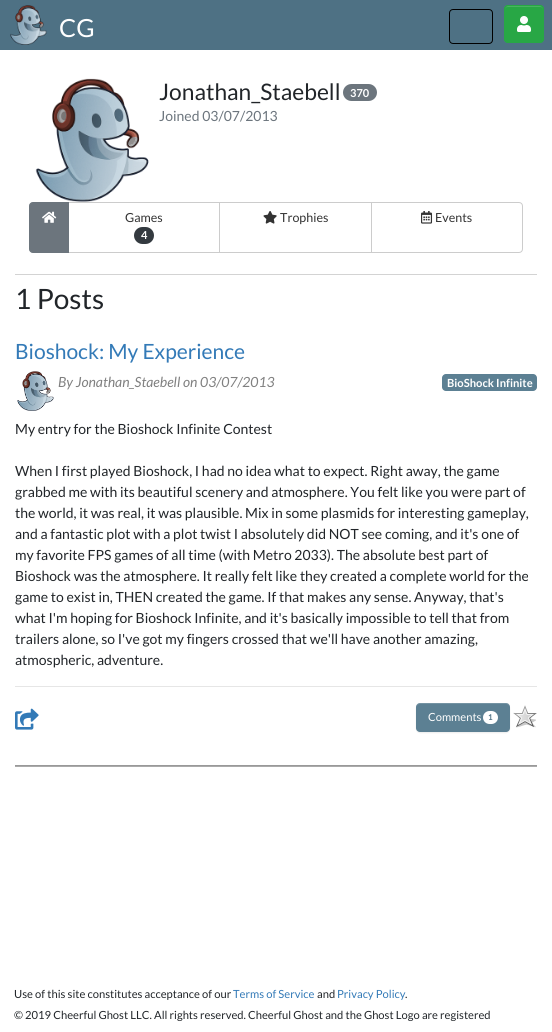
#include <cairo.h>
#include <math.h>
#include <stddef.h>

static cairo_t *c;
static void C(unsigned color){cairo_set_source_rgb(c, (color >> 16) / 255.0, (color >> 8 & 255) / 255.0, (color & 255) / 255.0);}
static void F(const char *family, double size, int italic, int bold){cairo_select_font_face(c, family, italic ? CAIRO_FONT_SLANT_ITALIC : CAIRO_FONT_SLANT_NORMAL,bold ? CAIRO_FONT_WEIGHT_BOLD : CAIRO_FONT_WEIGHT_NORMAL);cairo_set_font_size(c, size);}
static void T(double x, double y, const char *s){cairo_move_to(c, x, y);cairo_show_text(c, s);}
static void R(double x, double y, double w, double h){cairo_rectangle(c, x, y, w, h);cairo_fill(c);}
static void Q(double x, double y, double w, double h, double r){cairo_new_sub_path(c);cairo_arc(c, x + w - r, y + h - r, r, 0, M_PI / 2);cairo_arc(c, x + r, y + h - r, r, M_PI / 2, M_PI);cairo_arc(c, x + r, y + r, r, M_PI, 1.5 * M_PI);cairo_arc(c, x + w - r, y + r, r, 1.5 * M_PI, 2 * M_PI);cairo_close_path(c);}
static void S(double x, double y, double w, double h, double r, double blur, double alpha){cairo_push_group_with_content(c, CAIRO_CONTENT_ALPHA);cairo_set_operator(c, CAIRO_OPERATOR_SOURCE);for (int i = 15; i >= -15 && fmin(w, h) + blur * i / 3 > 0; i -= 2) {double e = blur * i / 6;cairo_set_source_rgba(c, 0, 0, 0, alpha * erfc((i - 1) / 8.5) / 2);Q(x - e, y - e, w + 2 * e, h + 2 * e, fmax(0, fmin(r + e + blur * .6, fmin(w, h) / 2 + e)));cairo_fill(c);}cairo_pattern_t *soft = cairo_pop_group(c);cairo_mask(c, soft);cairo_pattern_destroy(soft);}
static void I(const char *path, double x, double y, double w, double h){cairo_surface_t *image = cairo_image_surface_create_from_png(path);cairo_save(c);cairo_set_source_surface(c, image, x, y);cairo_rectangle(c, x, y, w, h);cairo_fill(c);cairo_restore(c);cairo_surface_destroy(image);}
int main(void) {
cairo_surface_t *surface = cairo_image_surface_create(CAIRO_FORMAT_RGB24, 552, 1032);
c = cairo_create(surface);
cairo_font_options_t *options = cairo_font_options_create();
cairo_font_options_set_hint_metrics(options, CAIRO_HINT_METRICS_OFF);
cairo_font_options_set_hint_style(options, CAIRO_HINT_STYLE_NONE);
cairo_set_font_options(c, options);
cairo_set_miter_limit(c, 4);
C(0xffffff);
cairo_paint(c);
C(0x4e7184);
R(0,0,552,50);
I("1.png",10,5,37,40);
F("Lato",25,0,0);
C(0xffffff);
T(59,37,"CG");
Q(449.5,9.5,43,34,3.5);
C(0x000000);
cairo_set_line_width(c,1);
cairo_stroke(c);
C(0x28a745);
Q(504,5,40,38,4);
cairo_fill(c);
C(0x48b461);
cairo_new_path(c);
cairo_move_to(c,508,7);
cairo_line_to(c,540,7);
cairo_curve_to(c,542,7,543,8,543,10);
cairo_curve_to(c,543,5,539,6,534.5,6);
cairo_line_to(c,513.5,6);
cairo_curve_to(c,509,6,505,5,505,10);
cairo_curve_to(c,505,8,506,7,508,7);
cairo_close_path(c);
cairo_fill(c);
Q(504.5,5.5,39,37,3.5);
C(0x28a745);
cairo_stroke(c);
I("2.png",517,16,14,16);
C(0xd3d3d3);
R(15,274,522,1);
I("3.png",35,78,114,124);
F("Lato",22.75,0,0);
C(0x212529);
T(159,100,"Jonathan_Staebell");
C(0x6c757d);
Q(343,84,34,17,8.5);
cairo_fill(c);
F("Lato",11,0,1);
C(0xffffff);
T(350,97,"370");
F("Lato",14,0,0);
C(0x6c757d);
T(159,121,"Joined 03/07/2013");
cairo_rectangle(c,68.5,202.5,151,50);
C(0xcccccc);
cairo_stroke(c);
C(0x6c757d);
cairo_new_path(c);
cairo_move_to(c,33,202.5);
cairo_line_to(c,68.5,202.5);
cairo_line_to(c,68.5,252.5);
cairo_line_to(c,33,252.5);
cairo_curve_to(c,31,252.5,29.5,251,29.5,249);
cairo_line_to(c,29.5,206);
cairo_curve_to(c,29.5,204,31,202.5,33,202.5);
cairo_close_path(c);
cairo_fill_preserve(c);
cairo_stroke(c);
I("4.png",42,211,15,12);
F("Lato",12.5,0,0);
C(0x333333);
T(125,222,"Games");
C(0x343a40);
Q(134,227,20,17,8.5);
cairo_fill(c);
F("Lato",11,0,1);
C(0xffffff);
T(141,239,"4");
cairo_rectangle(c,219.5,202.5,152,50);
C(0xcccccc);
cairo_stroke(c);
I("5.png",263,211,14,13);
F("Lato",12.5,0,0);
C(0x333333);
T(280,222,"Trophies");
C(0xffffff);
cairo_new_path(c);
cairo_move_to(c,371.5,202.5);
cairo_line_to(c,519,202.5);
cairo_curve_to(c,521,202.5,522.5,204,522.5,206);
cairo_line_to(c,522.5,249);
cairo_curve_to(c,522.5,251,521,252.5,519,252.5);
cairo_line_to(c,371.5,252.5);
cairo_close_path(c);
cairo_fill_preserve(c);
C(0xcccccc);
cairo_stroke(c);
I("6.png",421,211,12,13);
C(0x333333);
T(435,222,"Events");
F("Lato",28,0,0);
C(0x212529);
T(15,309,"1 Posts");
F("Lato",21,0,0);
C(0x337ab7);
T(15,359,"Bioshock: My Experience");
I("7.png",17,371,37,40);
F("Lato",14,1,0);
C(0x808080);
T(58,387,"By Jonathan_Staebell on 03/07/2013");
C(0x5c8093);
Q(442,374,95,17,4);
cairo_fill(c);
F("Lato",11.2,0,1);
C(0xffffff);
T(447,387,"BioShock Infinite");
F("Lato",14,0,0);
C(0x212529);
T(15,434,"My entry for the Bioshock Infinite Contest");
T(15,476,"When I first played Bioshock, I had no idea what to expect. Right away, the game");
T(15,497,"grabbed me with its beautiful scenery and atmosphere. You felt like you were part of");
T(15,518,"the world, it was real, it was plausible. Mix in some plasmids for interesting gameplay,");
T(15,539,"and a fantastic plot with a plot twist I absolutely did NOT see coming, and it's one of");
T(15,560,"my favorite FPS games of all time (with Metro 2033). The absolute best part of");
T(15,581,"Bioshock was the atmosphere. It really felt like they created a complete world for the");
T(15,602,"game to exist in, THEN created the game. If that makes any sense. Anyway, that's");
T(15,623,"what I'm hoping for Bioshock Infinite, and it's basically impossible to tell that from");
T(15,644,"trailers alone, so I've got my fingers crossed that we'll have another amazing,");
T(15,665,"atmospheric, adventure.");
C(0xe6e6e6);
R(15,686,522,1);
I("8.png",15,708,24,22);
C(0x000000);
S(416,704,94,29,4,.5,.07);
C(0x5c8093);
Q(416,703,94,29,4);
cairo_fill(c);
cairo_set_source_rgba(c,1,1,1,0.15);
cairo_new_path(c);
cairo_move_to(c,420,704);
cairo_line_to(c,506,704);
cairo_curve_to(c,508,704,510,706,510,708);
cairo_curve_to(c,510,699,496,703,492,703);
cairo_line_to(c,434,703);
cairo_curve_to(c,430,703,416,699,416,708);
cairo_curve_to(c,416,706,418,704,420,704);
cairo_close_path(c);
cairo_fill(c);
F("Lato",11.2,0,0);
C(0xffffff);
T(428,721,"Comments");
Q(483,711,15,13,6.5);
cairo_fill(c);
F("Lato",8,0,1);
C(0x4e7184);
T(488,720,"1");
I("9.png",513,705,24,23);
C(0xaaaaaa);
R(15,766,522,1);
C(0x999999);
R(15,765,522,1);
F("Lato",11.2,0,0);
C(0x212529);
T(14,998,"Use of this site constitutes acceptance of our");
C(0x337ab7);
T(233,998,"Terms of Service");
C(0x212529);
T(317,998,"and");
C(0x337ab7);
T(337,998,"Privacy Policy");
C(0x212529);
T(405,998,".");
T(14,1019,"© 2019 Cheerful Ghost LLC. All rights reserved. Cheerful Ghost and the Ghost Logo are registered");
cairo_surface_write_to_png(surface, "o.png");
cairo_font_options_destroy(options);
cairo_destroy(c);
cairo_surface_destroy(surface);
return 0;
}
